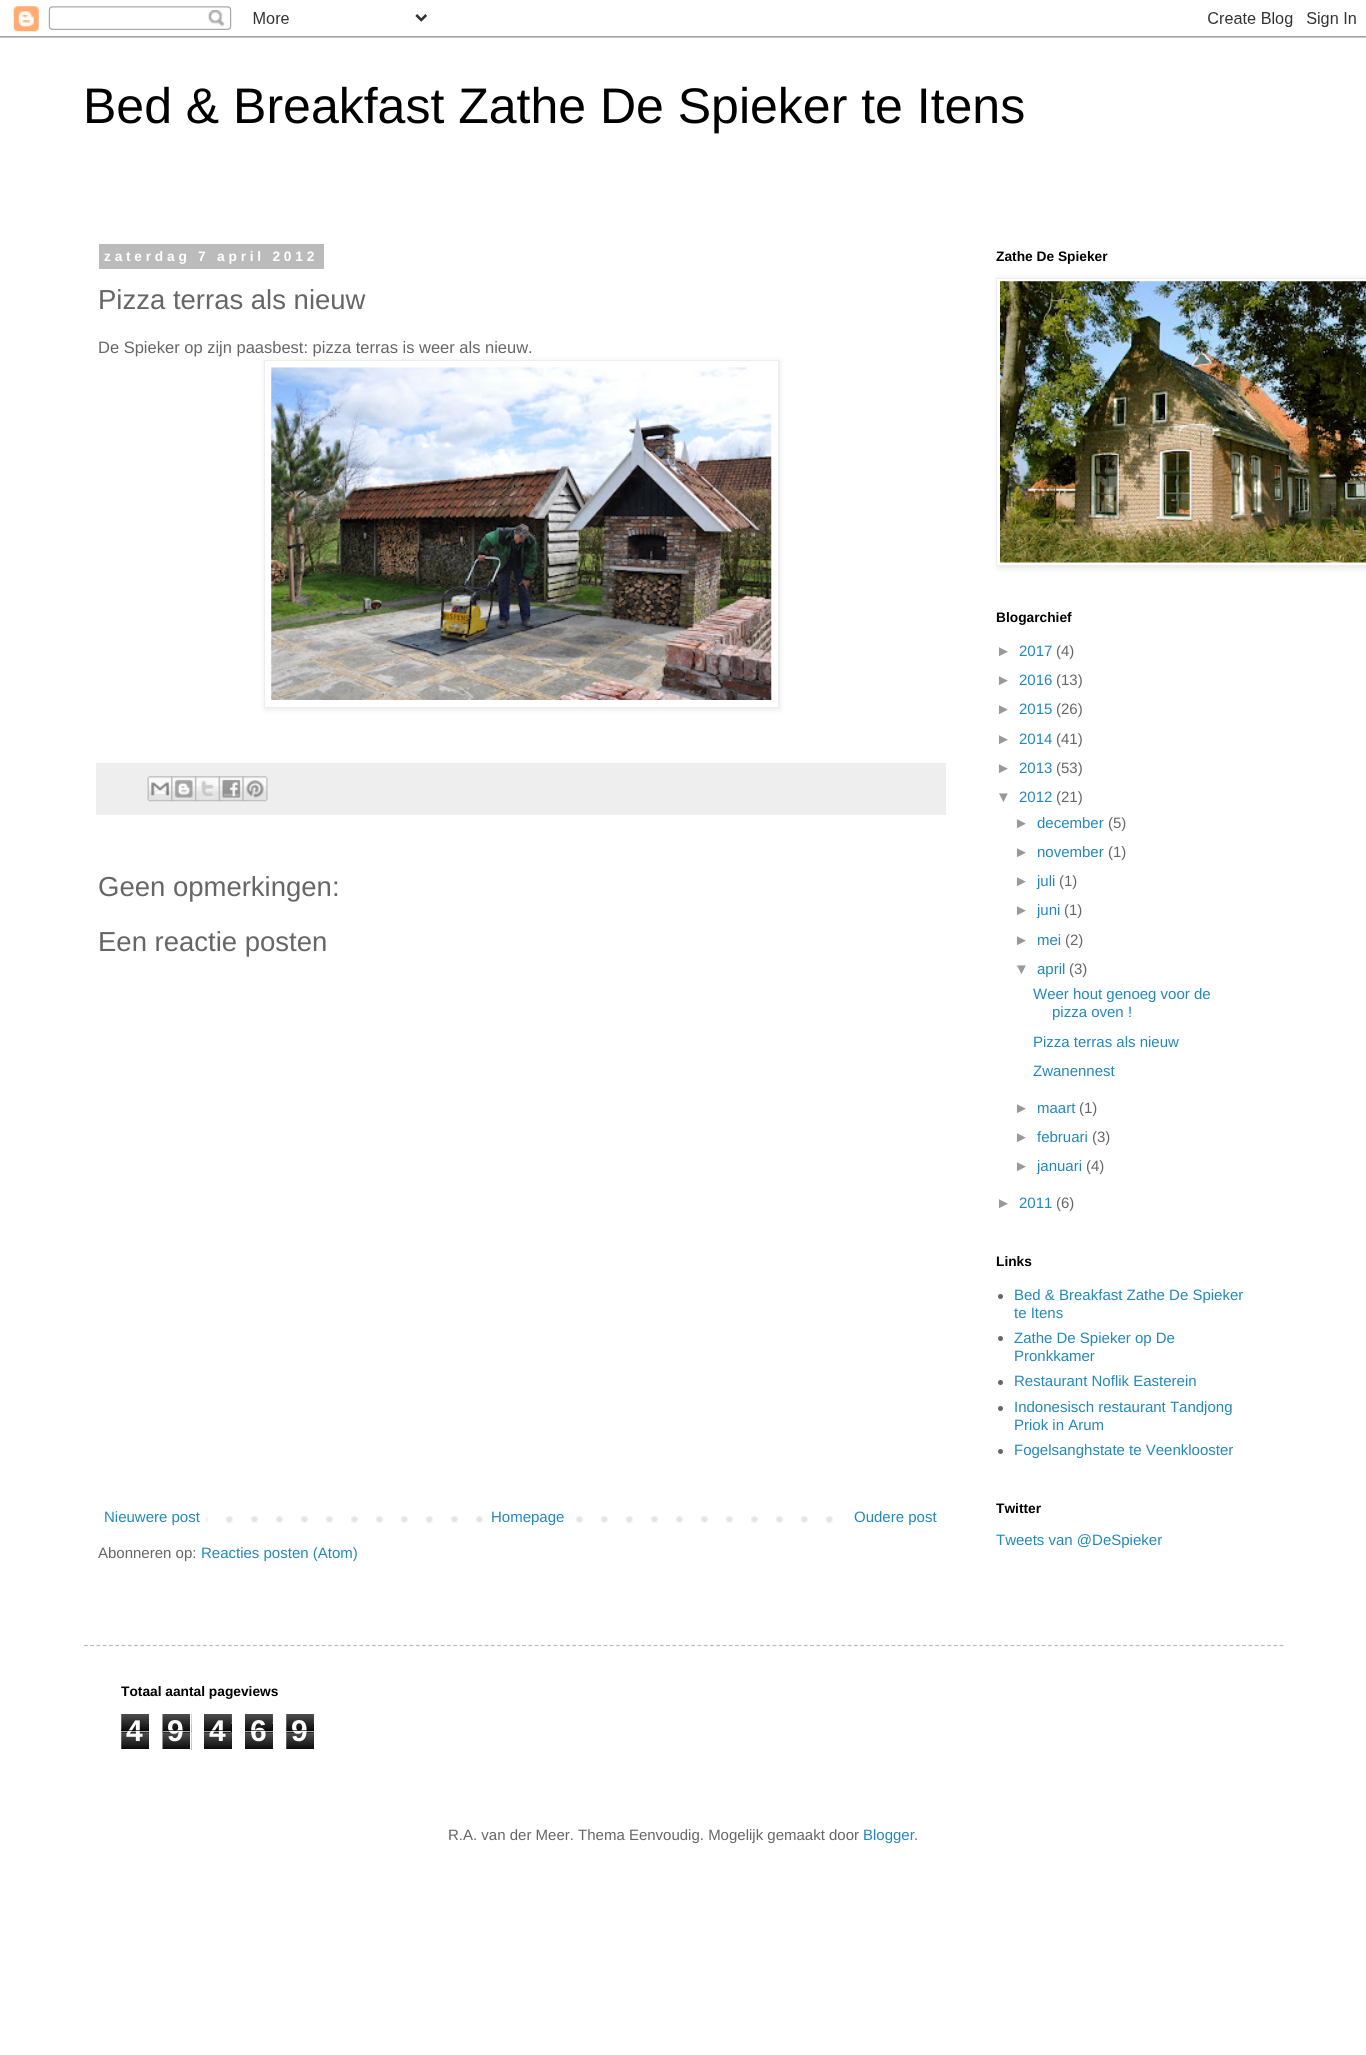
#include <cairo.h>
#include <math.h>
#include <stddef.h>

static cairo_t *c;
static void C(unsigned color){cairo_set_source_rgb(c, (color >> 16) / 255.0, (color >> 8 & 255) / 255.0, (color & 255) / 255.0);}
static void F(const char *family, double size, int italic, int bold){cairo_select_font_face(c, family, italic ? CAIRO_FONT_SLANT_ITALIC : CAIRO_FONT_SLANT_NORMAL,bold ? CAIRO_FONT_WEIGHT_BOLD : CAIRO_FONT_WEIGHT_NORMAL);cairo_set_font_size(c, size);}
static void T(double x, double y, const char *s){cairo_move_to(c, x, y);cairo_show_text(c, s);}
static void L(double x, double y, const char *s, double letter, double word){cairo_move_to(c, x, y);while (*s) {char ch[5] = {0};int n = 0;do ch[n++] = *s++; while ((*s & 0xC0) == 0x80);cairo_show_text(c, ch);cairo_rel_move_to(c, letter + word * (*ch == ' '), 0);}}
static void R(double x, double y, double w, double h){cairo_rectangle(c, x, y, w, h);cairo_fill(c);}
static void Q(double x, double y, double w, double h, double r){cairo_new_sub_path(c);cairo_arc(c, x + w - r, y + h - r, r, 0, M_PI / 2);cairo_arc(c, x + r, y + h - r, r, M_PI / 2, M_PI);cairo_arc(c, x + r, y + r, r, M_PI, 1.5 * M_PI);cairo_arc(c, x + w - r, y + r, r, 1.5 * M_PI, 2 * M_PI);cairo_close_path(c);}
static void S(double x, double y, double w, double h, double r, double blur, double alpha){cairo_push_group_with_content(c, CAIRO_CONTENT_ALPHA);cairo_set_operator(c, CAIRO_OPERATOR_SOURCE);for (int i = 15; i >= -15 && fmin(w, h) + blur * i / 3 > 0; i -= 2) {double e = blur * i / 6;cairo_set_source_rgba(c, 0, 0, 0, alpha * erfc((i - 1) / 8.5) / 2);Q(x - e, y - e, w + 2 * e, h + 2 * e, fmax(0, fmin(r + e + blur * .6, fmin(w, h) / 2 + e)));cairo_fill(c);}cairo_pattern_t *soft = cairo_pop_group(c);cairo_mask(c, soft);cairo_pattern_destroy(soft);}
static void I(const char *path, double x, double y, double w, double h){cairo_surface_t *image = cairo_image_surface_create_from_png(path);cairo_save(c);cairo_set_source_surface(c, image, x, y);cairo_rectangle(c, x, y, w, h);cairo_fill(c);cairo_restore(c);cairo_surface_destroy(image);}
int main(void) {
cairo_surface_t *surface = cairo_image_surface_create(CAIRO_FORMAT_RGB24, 1366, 2055);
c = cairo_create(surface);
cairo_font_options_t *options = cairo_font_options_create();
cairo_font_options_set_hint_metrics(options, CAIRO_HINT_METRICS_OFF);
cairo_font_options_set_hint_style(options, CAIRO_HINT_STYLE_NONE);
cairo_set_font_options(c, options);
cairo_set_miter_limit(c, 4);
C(0xffffff);
cairo_paint(c);
I("1.png",0,6,1366,32);
F("Liberation Sans",50,0,0);
C(0x000000);
T(83,123,"Bed & Breakfast Zathe De Spieker te Itens");
C(0xbbbbbb);
R(99,244,225,25);
F("Liberation Sans",13.75,0,1);
C(0xffffff);
L(104,261,"zaterdag 7 april 2012",3.75,0);
F("Liberation Sans",27.5,0,0);
C(0x666666);
T(98,309,"Pizza terras als nieuw");
F("Liberation Sans",16.5,0,0);
T(98,353,"De Spieker op zijn paasbest: pizza terras is weer als nieuw.");
C(0x000000);
S(265,361,515,348,0,3,.1);
C(0xffffff);
cairo_rectangle(c,264.5,360.5,514,347);
cairo_fill_preserve(c);
C(0xeeeeee);
cairo_set_line_width(c,1);
cairo_stroke(c);
I("2.png",271,367,501,333);
R(96,763,850,52);
I("3.png",147,776,26,26);
I("4.png",171,776,26,26);
I("5.png",195,776,25,26);
I("6.png",218,776,26,26);
I("7.png",242,776,26,26);
F("Liberation Sans",27.5,0,0);
C(0x666666);
T(98,896,"Geen opmerkingen:");
T(98,951,"Een reactie posten");
I("8.png",206,1516,627,7);
F("Liberation Sans",15,0,0);
C(0x2288bb);
T(104,1522,"Nieuwere post");
C(0xffffff);
R(501,1516,58,7);
C(0x2288bb);
T(491,1522,"Homepage");
T(854,1522,"Oudere post");
C(0x666666);
T(98,1558,"Abonneren op:");
C(0x2288bb);
T(201,1558,"Reacties posten (Atom)");
F("Liberation Sans",13.75,0,1);
C(0x000000);
T(996,261,"Zathe De Spieker");
C(0x000000);
S(998,279,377,289,0,3,.1);
C(0xffffff);
cairo_rectangle(c,996.5,278.5,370,287);
cairo_fill_preserve(c);
C(0xeeeeee);
cairo_stroke(c);
I("9.png",1000,281,366,282);
C(0x000000);
T(996,622,"Blogarchief");
F("Liberation Sans",15,0,0);
C(0x999999);
T(996,656,"►");
C(0x2288bb);
T(1019,656,"2017");
C(0x666666);
T(1056,656,"(4)");
C(0x999999);
T(996,685,"►");
C(0x2288bb);
T(1019,685,"2016");
C(0x666666);
T(1056,685,"(13)");
C(0x999999);
T(996,714,"►");
C(0x2288bb);
T(1019,714,"2015");
C(0x666666);
T(1056,714,"(26)");
C(0x999999);
T(996,744,"►");
C(0x2288bb);
T(1019,744,"2014");
C(0x666666);
T(1056,744,"(41)");
C(0x999999);
T(996,773,"►");
C(0x2288bb);
T(1019,773,"2013");
C(0x666666);
T(1056,773,"(53)");
C(0x999999);
T(996,802,"▼");
C(0x2288bb);
T(1019,802,"2012");
C(0x666666);
T(1056,802,"(21)");
C(0x999999);
T(1014,828,"►");
C(0x2288bb);
T(1037,828,"december");
C(0x666666);
T(1108,828,"(5)");
C(0x999999);
T(1014,857,"►");
C(0x2288bb);
T(1037,857,"november");
C(0x666666);
T(1108,857,"(1)");
C(0x999999);
T(1014,886,"►");
C(0x2288bb);
T(1037,886,"juli");
C(0x666666);
T(1059,886,"(1)");
C(0x999999);
T(1014,915,"►");
C(0x2288bb);
T(1037,915,"juni");
C(0x666666);
T(1064,915,"(1)");
C(0x999999);
T(1014,945,"►");
C(0x2288bb);
T(1037,945,"mei");
C(0x666666);
T(1065,945,"(2)");
C(0x999999);
T(1014,974,"▼");
C(0x2288bb);
T(1037,974,"april");
C(0x666666);
T(1069,974,"(3)");
C(0x2288bb);
T(1033,999,"Weer hout genoeg voor de");
T(1052,1017,"pizza oven !");
T(1033,1047,"Pizza terras als nieuw");
T(1033,1076,"Zwanennest");
C(0x999999);
T(1014,1113,"►");
C(0x2288bb);
T(1037,1113,"maart");
C(0x666666);
T(1079,1113,"(1)");
C(0x999999);
T(1014,1142,"►");
C(0x2288bb);
T(1037,1142,"februari");
C(0x666666);
T(1092,1142,"(3)");
C(0x999999);
T(1014,1171,"►");
C(0x2288bb);
T(1037,1171,"januari");
C(0x666666);
T(1086,1171,"(4)");
C(0x999999);
T(996,1208,"►");
C(0x2288bb);
T(1019,1208,"2011");
C(0x666666);
T(1056,1208,"(6)");
F("Liberation Sans",13.75,0,1);
C(0x000000);
T(996,1266,"Links");
C(0x666666);
cairo_new_path(c);
cairo_arc(c,1000.5,1296.5,2.5,0,2 * M_PI);
cairo_fill(c);
F("Liberation Sans",15,0,0);
C(0x2288bb);
T(1014,1300,"Bed & Breakfast Zathe De Spieker");
T(1014,1318,"te Itens");
C(0x666666);
cairo_new_path(c);
cairo_arc(c,1000.5,1338.5,2.5,0,2 * M_PI);
cairo_fill(c);
C(0x2288bb);
T(1014,1343,"Zathe De Spieker op De");
T(1014,1361,"Pronkkamer");
C(0x666666);
cairo_new_path(c);
cairo_arc(c,1000.5,1382.5,2.5,0,2 * M_PI);
cairo_fill(c);
C(0x2288bb);
T(1014,1386,"Restaurant Noflik Easterein");
C(0x666666);
cairo_new_path(c);
cairo_arc(c,1000.5,1408.5,2.5,0,2 * M_PI);
cairo_fill(c);
C(0x2288bb);
T(1014,1412,"Indonesisch restaurant Tandjong");
T(1014,1430,"Priok in Arum");
C(0x666666);
cairo_new_path(c);
cairo_arc(c,1000.5,1451.5,2.5,0,2 * M_PI);
cairo_fill(c);
C(0x2288bb);
T(1014,1455,"Fogelsanghstate te Veenklooster");
F("Liberation Sans",13.75,0,1);
C(0x000000);
T(996,1513,"Twitter");
F("Liberation Sans",15,0,0);
C(0x2288bb);
T(996,1545,"Tweets van @DeSpieker");
cairo_new_path(c);
cairo_move_to(c,84,1645.5);
cairo_line_to(c,1284,1645.5);
C(0xbbbbbb);
cairo_set_line_width(c,1.2);
cairo_set_dash(c,(double[]){3.75,2.51},2,0);
cairo_stroke(c);
F("Liberation Sans",13.75,0,1);
C(0x000000);
T(121,1696,"Totaal aantal pageviews");
I("10.png",121,1714,28,35);
F("Liberation Sans",30,0,1);
C(0xffffff);
T(126,1741,"4");
cairo_set_source_rgba(c,0,0,0,0.65);
R(121,1730,28,1);
cairo_set_source_rgba(c,1,1,1,0.65);
R(121,1731,28,1);
I("11.png",162,1713,30,37);
cairo_rectangle(c,161.5,1713.5,29,36);
C(0xffffff);
cairo_set_line_width(c,1);
cairo_set_dash(c,NULL,0,0);
cairo_stroke(c);
T(167,1741,"9");
cairo_set_source_rgba(c,0,0,0,0.65);
R(163,1730,27,1);
cairo_set_source_rgba(c,1,1,1,0.65);
R(163,1731,27,1);
I("12.png",204,1714,28,35);
C(0xffffff);
T(209,1741,"4");
cairo_set_source_rgba(c,0,0,0,0.65);
R(204,1730,27,1);
cairo_set_source_rgba(c,1,1,1,0.65);
R(204,1731,27,1);
I("13.png",245,1714,28,35);
C(0xffffff);
T(250,1741,"6");
cairo_set_source_rgba(c,0,0,0,0.65);
R(245,1730,28,1);
cairo_set_source_rgba(c,1,1,1,0.65);
R(245,1731,28,1);
I("10.png",286,1714,28,35);
C(0xffffff);
T(291,1741,"9");
cairo_set_source_rgba(c,0,0,0,0.65);
R(286,1730,28,1);
cairo_set_source_rgba(c,1,1,1,0.65);
R(286,1731,28,1);
F("Liberation Sans",15,0,0);
C(0x666666);
T(448,1840,"R.A. van der Meer. Thema Eenvoudig. Mogelijk gemaakt door");
C(0x2288bb);
T(863,1840,"Blogger");
C(0x666666);
T(914,1840,".");
cairo_surface_write_to_png(surface, "o.png");
cairo_font_options_destroy(options);
cairo_destroy(c);
cairo_surface_destroy(surface);
return 0;
}
